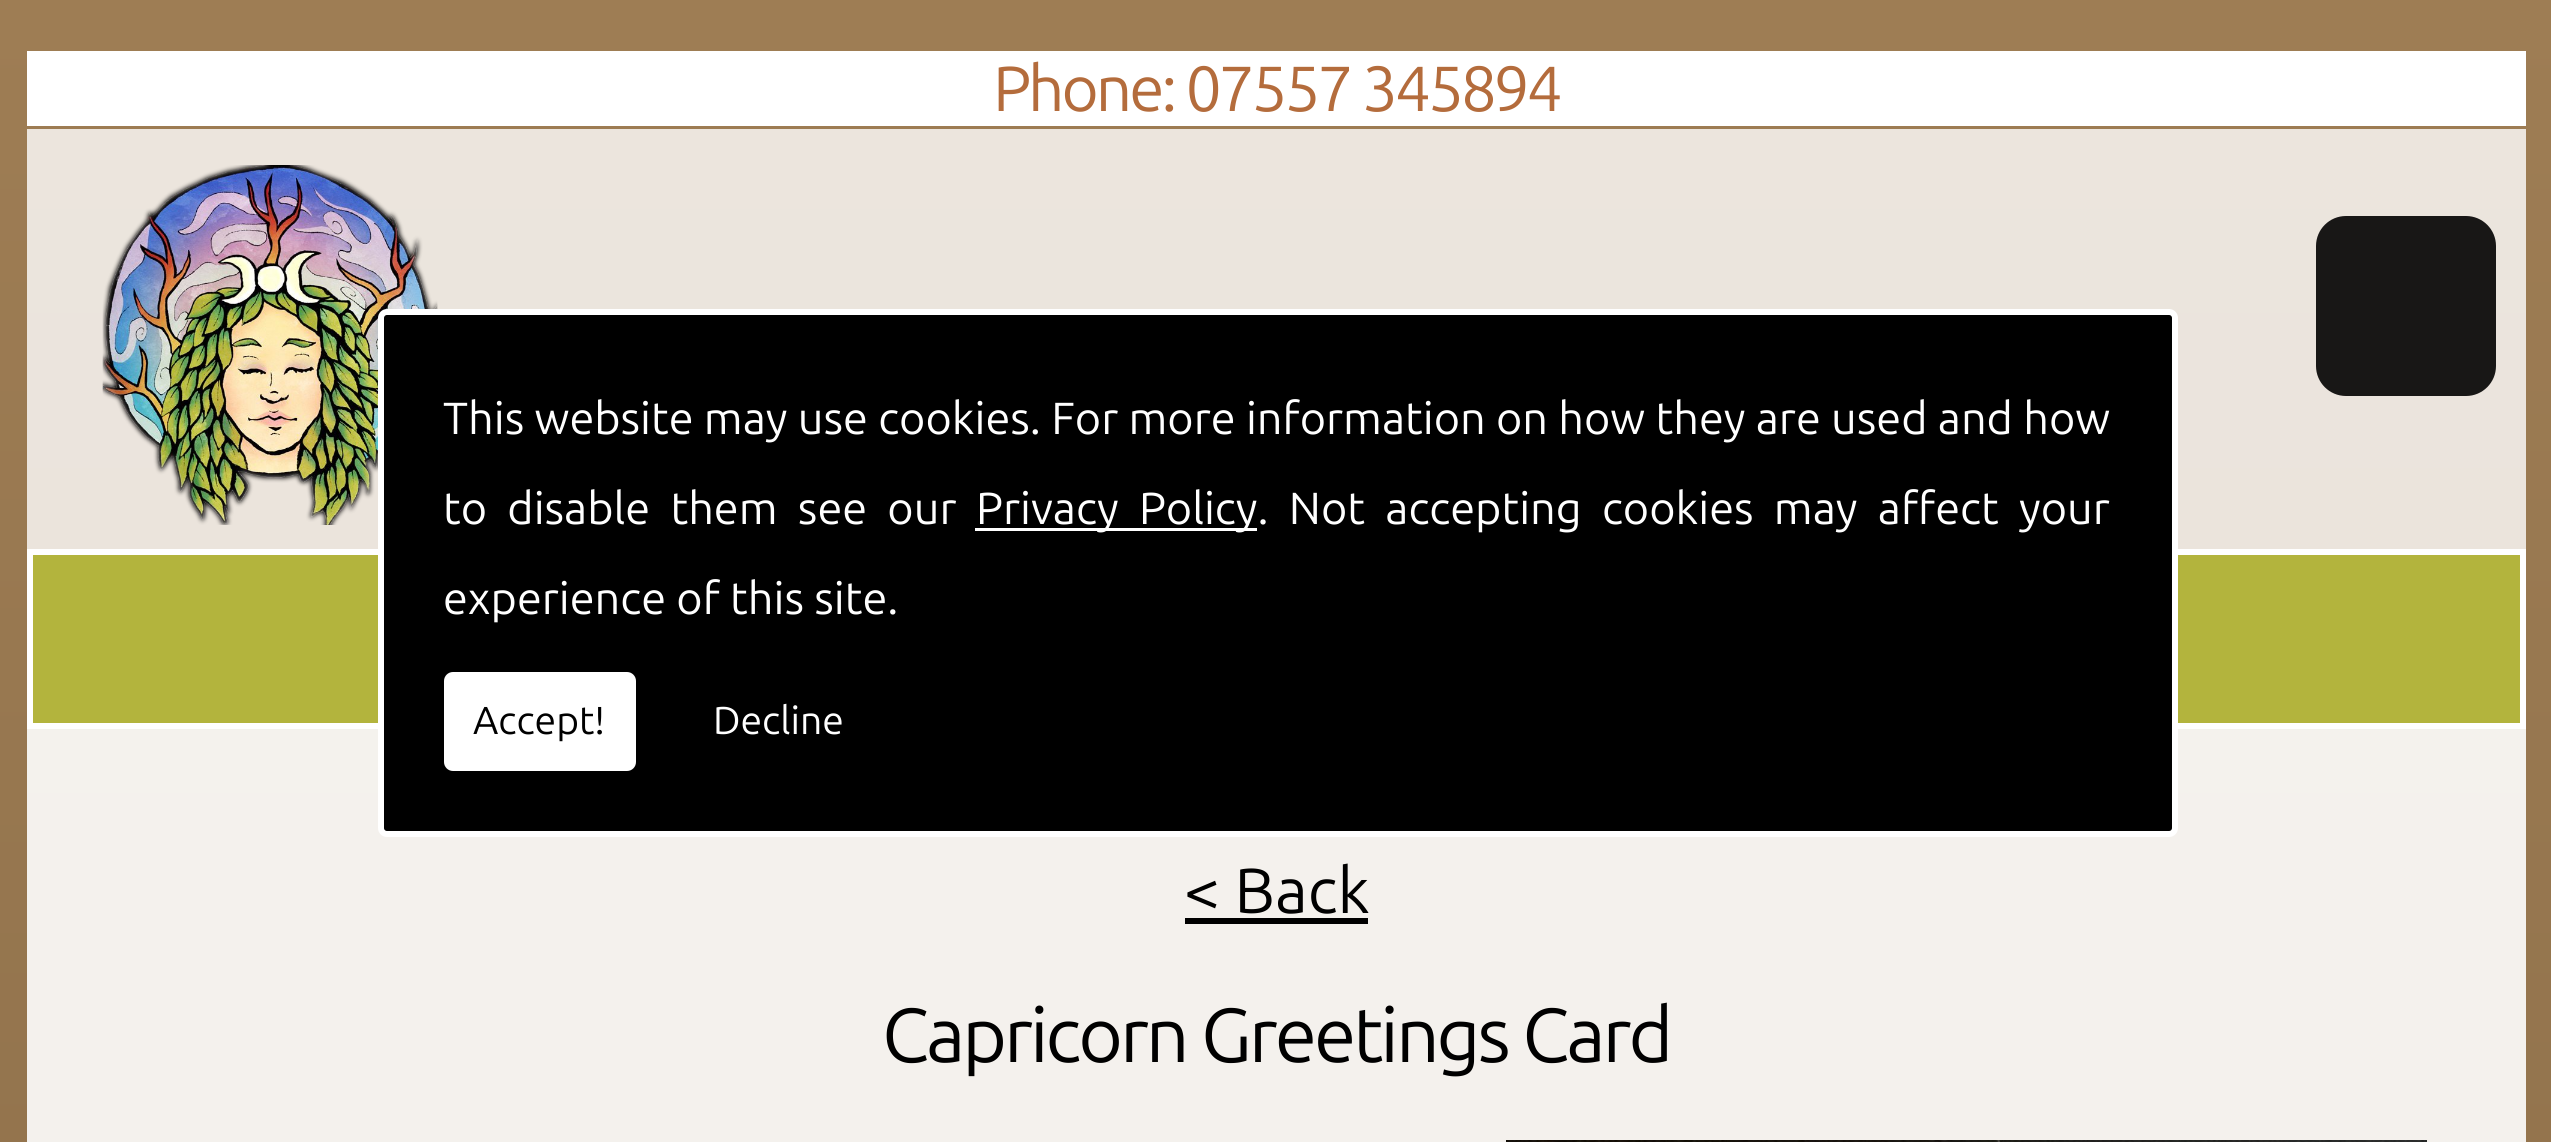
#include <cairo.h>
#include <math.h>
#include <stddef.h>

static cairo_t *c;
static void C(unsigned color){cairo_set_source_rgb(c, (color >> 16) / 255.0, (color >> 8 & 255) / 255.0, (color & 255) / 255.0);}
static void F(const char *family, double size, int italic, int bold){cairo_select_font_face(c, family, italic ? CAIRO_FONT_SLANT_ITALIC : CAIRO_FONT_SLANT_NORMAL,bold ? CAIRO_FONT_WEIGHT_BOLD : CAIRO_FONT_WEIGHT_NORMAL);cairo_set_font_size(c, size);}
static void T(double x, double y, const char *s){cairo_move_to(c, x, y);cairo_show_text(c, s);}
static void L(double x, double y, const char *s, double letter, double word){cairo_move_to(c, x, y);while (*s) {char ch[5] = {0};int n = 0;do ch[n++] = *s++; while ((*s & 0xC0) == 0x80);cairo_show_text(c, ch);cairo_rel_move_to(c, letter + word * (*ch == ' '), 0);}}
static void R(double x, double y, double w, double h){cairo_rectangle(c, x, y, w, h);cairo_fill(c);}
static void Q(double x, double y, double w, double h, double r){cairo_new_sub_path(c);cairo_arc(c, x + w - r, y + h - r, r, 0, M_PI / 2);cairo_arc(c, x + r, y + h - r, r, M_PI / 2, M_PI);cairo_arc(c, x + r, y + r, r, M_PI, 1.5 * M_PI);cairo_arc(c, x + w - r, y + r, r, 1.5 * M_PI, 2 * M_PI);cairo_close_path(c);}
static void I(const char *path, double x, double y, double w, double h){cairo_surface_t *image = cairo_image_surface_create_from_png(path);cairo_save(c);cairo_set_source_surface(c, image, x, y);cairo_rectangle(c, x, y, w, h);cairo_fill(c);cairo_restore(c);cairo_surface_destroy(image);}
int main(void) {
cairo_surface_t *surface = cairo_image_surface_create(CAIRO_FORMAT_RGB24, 2551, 1142);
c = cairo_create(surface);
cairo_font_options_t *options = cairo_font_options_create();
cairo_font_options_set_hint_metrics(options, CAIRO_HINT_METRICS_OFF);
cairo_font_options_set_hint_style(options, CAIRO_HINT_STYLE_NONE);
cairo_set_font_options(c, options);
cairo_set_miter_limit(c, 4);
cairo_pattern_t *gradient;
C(0xffffff);
cairo_paint(c);
gradient = cairo_pattern_create_linear(0,0,0,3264);
cairo_pattern_add_color_stop_rgba(gradient,0,0.62,0.49,0.329,1);
cairo_pattern_add_color_stop_rgba(gradient,1,0.502,0.392,0.255,1);
cairo_set_source(c,gradient);
cairo_pattern_destroy(gradient);
R(0,0,2551,1142);
gradient = cairo_pattern_create_linear(0,0,0,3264);
cairo_pattern_add_color_stop_rgba(gradient,0,0.961,0.949,0.933,1);
cairo_pattern_add_color_stop_rgba(gradient,1,0.949,0.941,0.925,1);
cairo_set_source(c,gradient);
cairo_pattern_destroy(gradient);
R(27,729,2499,413);
gradient = cairo_pattern_create_linear(0,0,0,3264);
cairo_pattern_add_color_stop_rgba(gradient,0,0.925,0.898,0.867,1);
cairo_pattern_add_color_stop_rgba(gradient,1,0.902,0.878,0.851,1);
cairo_set_source(c,gradient);
cairo_pattern_destroy(gradient);
R(27,129,2499,420);
I("1.png",102,165,336,360);
C(0xffffff);
R(27,51,2499,75);
F("Ubuntu",63.75,0,0);
C(0xb46c3c);
L(993,111,"Phone: 07557 345894",-3,0);
C(0xb3b43d);
cairo_rectangle(c,30,552,2493,174);
cairo_fill_preserve(c);
C(0xffffff);
cairo_set_line_width(c,6);
cairo_stroke(c);
C(0x181716);
Q(2316,216,180,180,30);
cairo_fill(c);
C(0x000000);
T(1184,913,"< Back");
R(1185,918,183,6);
F("Ubuntu",76.5,0,0);
L(882,1062,"Capricorn Greetings Card",-3,0);
I("2.png",1506,1140,921,2);
Q(381,312,1794,522,6);
cairo_fill_preserve(c);
C(0xffffff);
cairo_stroke(c);
F("Ubuntu",45,0,0);
T(443,434,"This website may use cookies. For more information on how they are used and how");
L(443,524,"to disable them see our",0,10);
R(975,528,282,3);
L(976,524,"Privacy Policy. Not accepting cookies may affect your",0,10);
T(443,614,"experience of this site.");
Q(444,672,192,99,9);
cairo_fill(c);
F("Ubuntu",39,0,0);
C(0x000000);
T(473,734,"Accept!");
C(0xffffff);
T(713,734,"Decline");
cairo_surface_write_to_png(surface, "o.png");
cairo_font_options_destroy(options);
cairo_destroy(c);
cairo_surface_destroy(surface);
return 0;
}
